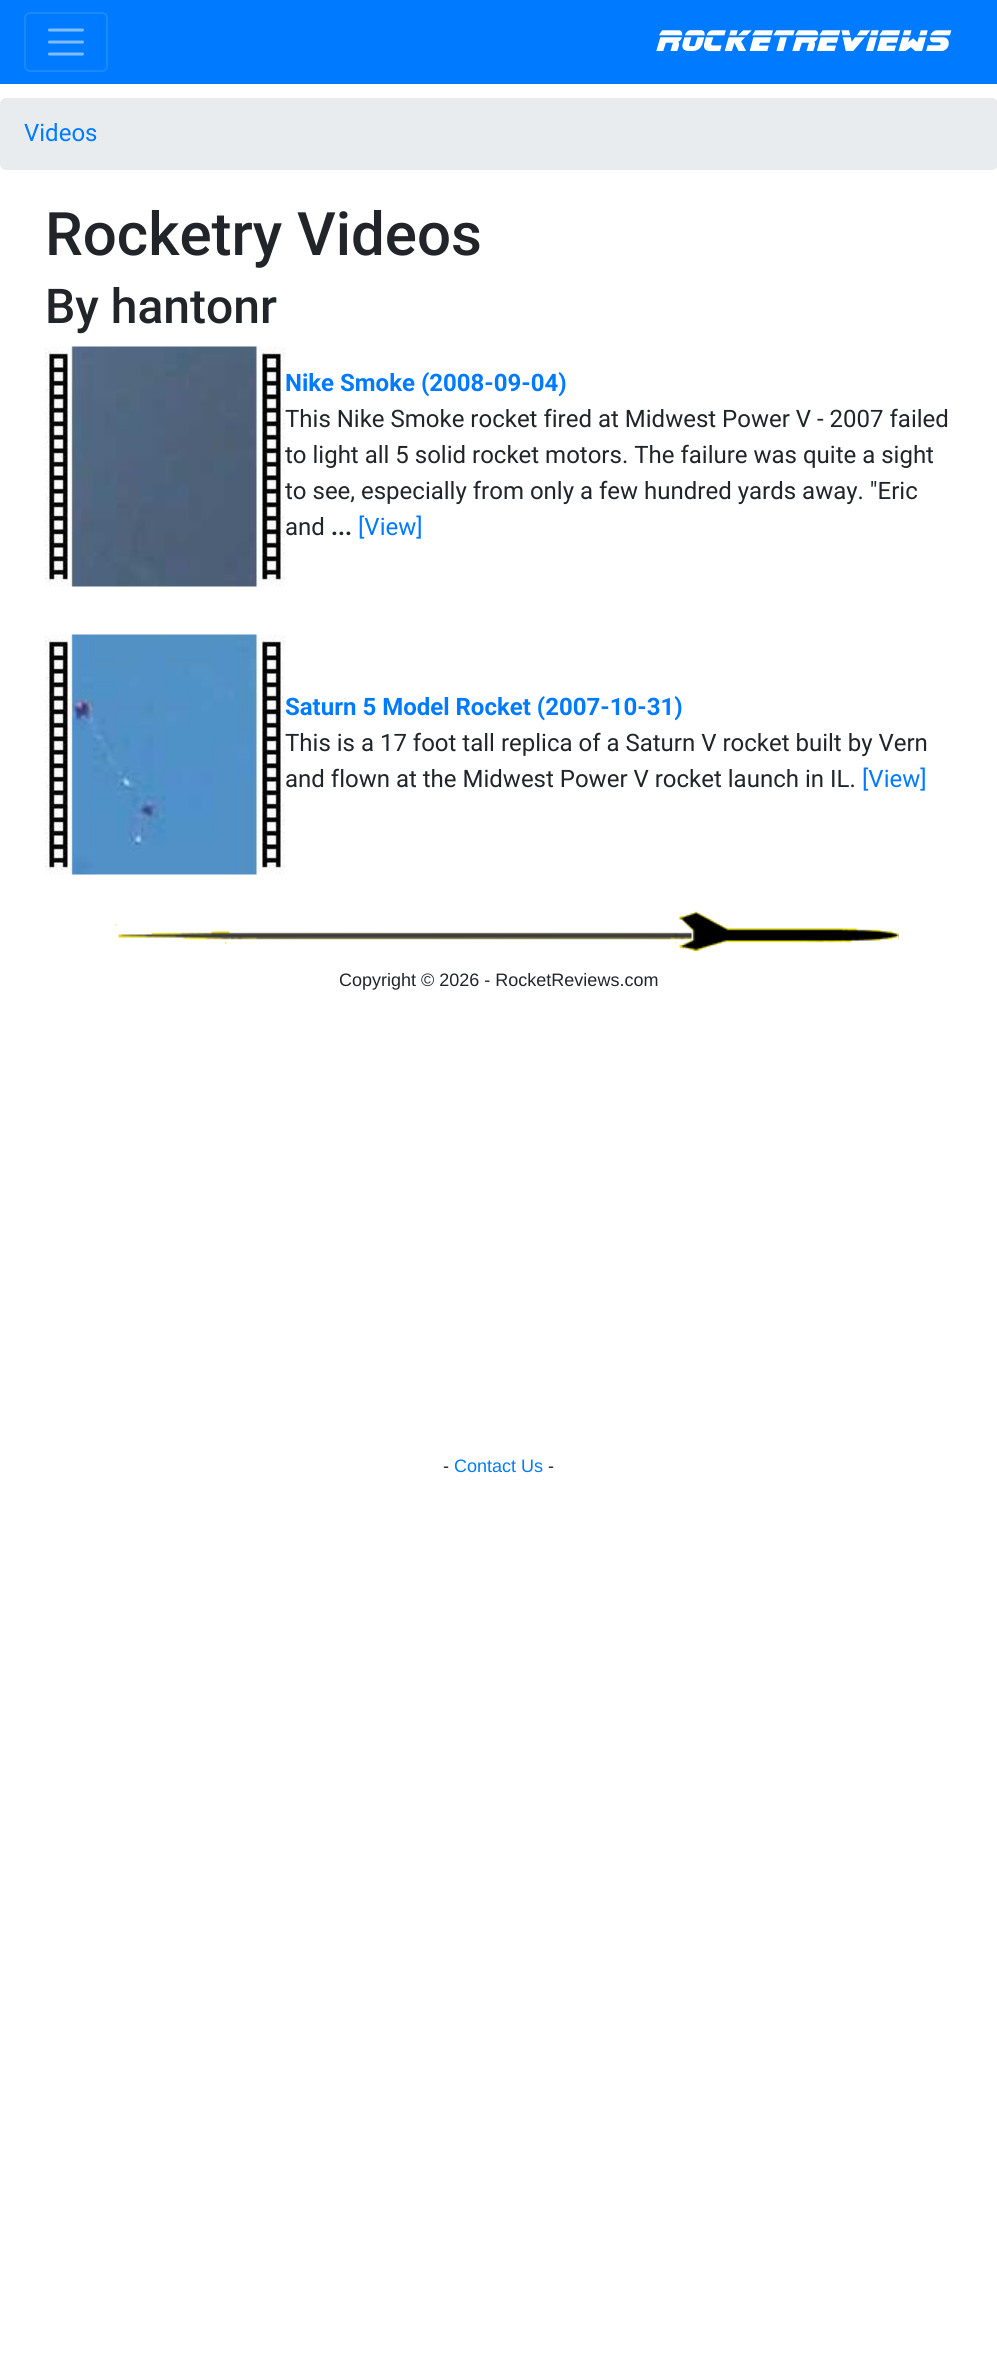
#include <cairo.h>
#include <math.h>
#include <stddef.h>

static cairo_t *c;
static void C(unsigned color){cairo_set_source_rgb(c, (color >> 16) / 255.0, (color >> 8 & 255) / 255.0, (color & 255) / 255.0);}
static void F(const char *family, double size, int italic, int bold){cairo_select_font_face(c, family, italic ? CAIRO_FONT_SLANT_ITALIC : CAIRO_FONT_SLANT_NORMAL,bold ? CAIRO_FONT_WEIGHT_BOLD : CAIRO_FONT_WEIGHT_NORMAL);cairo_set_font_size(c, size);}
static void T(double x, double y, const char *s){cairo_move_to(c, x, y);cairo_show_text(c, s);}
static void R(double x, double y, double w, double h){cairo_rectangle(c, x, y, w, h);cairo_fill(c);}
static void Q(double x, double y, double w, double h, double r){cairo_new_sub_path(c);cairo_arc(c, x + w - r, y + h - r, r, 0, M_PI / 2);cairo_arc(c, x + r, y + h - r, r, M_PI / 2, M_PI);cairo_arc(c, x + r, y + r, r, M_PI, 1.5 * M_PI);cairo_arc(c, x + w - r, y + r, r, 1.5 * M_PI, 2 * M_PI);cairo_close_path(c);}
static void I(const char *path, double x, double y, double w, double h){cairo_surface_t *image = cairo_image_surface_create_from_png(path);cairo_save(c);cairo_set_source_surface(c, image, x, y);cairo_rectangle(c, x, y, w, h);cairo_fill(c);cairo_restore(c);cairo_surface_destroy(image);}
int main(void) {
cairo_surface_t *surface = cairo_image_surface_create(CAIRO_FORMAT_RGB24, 997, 2380);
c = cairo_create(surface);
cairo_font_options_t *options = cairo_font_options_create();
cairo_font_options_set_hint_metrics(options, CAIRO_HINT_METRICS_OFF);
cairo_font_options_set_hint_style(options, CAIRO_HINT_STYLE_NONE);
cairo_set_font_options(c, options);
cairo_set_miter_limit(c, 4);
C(0xffffff);
cairo_paint(c);
C(0x007bff);
R(0,0,997,84);
Q(25,13,82,58,5);
C(0x1a88ff);
cairo_stroke(c);
cairo_new_path(c);
cairo_move_to(c,49.5,30);
cairo_line_to(c,82.5,30);
cairo_move_to(c,49.5,42);
cairo_line_to(c,82.5,42);
cairo_move_to(c,49.5,54);
cairo_line_to(c,82.5,54);
C(0x80bdff);
cairo_set_line_width(c,3);
cairo_set_line_cap(c,CAIRO_LINE_CAP_ROUND);
cairo_stroke(c);
F("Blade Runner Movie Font",30,1,1);
C(0xffffff);
T(657,51,"RocketReviews");
C(0xe9ecef);
Q(0,98,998,72,6);
cairo_fill(c);
F("Roboto",24,0,0);
C(0x007bff);
T(24,141,"Videos");
F("Roboto Medium",60,0,0);
C(0x212529);
T(45,255,"Rocketry Videos");
F("Roboto Medium",48,0,0);
T(45,323,"By hantonr");
I("1.png",45,346,240,241);
F("Roboto",24,0,1);
C(0x007bff);
T(285,391,"Nike Smoke (2008-09-04)");
F("Roboto",24,0,0);
C(0x212529);
T(285,427,"This Nike Smoke rocket fired at Midwest Power V - 2007 failed");
T(285,463,"to light all 5 solid rocket motors. The failure was quite a sight");
T(285,499,"to see, especially from only a few hundred yards away. \"Eric");
T(285,535,"and");
F("Roboto",24,0,1);
T(331,535,"...");
F("Roboto",24,0,0);
C(0x007bff);
T(358,535,"[View]");
I("2.png",45,634,240,241);
F("Roboto",24,0,1);
T(285,715,"Saturn 5 Model Rocket (2007-10-31)");
F("Roboto",24,0,0);
C(0x212529);
T(285,751,"This is a 17 foot tall replica of a Saturn V rocket built by Vern");
T(285,787,"and flown at the Midwest Power V rocket launch in IL.");
C(0x007bff);
T(862,787,"[View]");
I("3.png",256,932,643,8);
I("4.png",99,923,158,21);
I("5.png",670,911,229,40);
F("Liberation Sans",18,0,0);
C(0x212529);
T(339,986,"Copyright © 2026 - RocketReviews.com");
T(443,1472,"-");
C(0x007bff);
T(454,1472,"Contact Us");
C(0x212529);
T(548,1472,"-");
cairo_surface_write_to_png(surface, "o.png");
cairo_font_options_destroy(options);
cairo_destroy(c);
cairo_surface_destroy(surface);
return 0;
}
